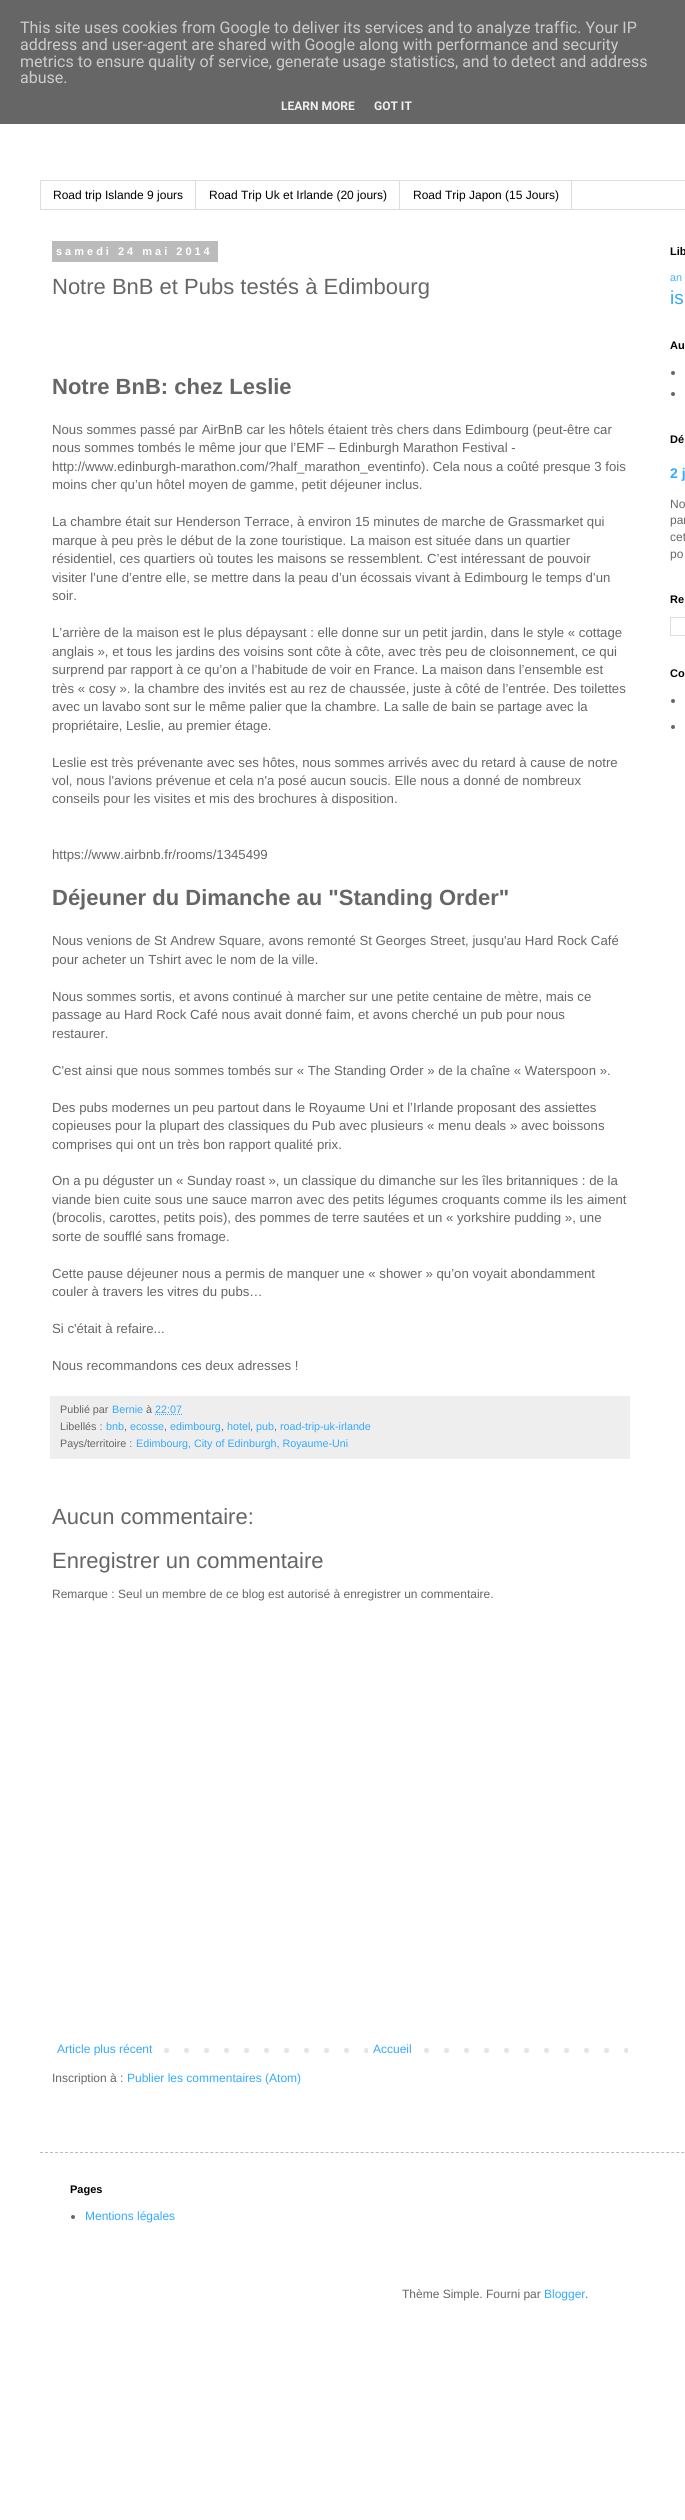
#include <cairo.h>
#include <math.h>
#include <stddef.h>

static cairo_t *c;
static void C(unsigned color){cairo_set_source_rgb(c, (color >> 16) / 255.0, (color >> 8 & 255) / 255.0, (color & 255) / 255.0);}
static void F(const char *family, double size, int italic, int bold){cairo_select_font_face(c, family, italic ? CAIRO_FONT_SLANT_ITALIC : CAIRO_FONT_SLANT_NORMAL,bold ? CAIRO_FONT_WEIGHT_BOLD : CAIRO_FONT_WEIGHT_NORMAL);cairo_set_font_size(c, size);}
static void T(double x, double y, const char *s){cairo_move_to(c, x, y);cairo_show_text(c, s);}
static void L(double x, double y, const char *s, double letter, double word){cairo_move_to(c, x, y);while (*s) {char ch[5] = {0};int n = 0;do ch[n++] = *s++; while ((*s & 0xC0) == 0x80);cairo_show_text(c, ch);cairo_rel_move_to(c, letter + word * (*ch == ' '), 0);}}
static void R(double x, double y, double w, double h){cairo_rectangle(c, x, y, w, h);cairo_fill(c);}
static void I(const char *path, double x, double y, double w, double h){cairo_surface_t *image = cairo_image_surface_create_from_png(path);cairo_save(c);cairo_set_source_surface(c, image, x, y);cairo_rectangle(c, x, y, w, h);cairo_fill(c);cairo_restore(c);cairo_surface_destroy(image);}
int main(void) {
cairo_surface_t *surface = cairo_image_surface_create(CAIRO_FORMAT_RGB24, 685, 2520);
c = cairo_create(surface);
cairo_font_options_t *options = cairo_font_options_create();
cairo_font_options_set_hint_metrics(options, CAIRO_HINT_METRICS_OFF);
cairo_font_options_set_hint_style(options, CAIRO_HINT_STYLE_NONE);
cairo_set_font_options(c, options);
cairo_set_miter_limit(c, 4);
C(0xffffff);
cairo_paint(c);
C(0x666666);
R(0,0,685,124);
F("Roboto",16,0,0);
C(0xcccccc);
T(20,33,"This site uses cookies from Google to deliver its services and to analyze traffic. Your IP");
T(20,50,"address and user-agent are shared with Google along with performance and security");
T(20,67,"metrics to ensure quality of service, generate usage statistics, and to detect and address");
T(20,83,"abuse.");
F("Roboto",12,0,1);
C(0xeeeeee);
T(281,110,"LEARN MORE");
T(374,110,"GOT IT");
cairo_rectangle(c,40.5,180.5,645,29);
C(0xdddddd);
cairo_set_line_width(c,1);
cairo_stroke(c);
R(195,181,1,28);
F("Liberation Sans",12,0,0);
C(0x000000);
T(53,199,"Road trip Islande 9 jours");
C(0xdddddd);
R(399,181,1,28);
C(0x000000);
T(209,199,"Road Trip Uk et Irlande (20 jours)");
C(0xdddddd);
R(571,181,1,28);
C(0x000000);
T(413,199,"Road Trip Japon (15 Jours)");
C(0xbbbbbb);
R(52,241,166,21);
F("Liberation Sans",11,0,1);
C(0xffffff);
L(56,255,"samedi 24 mai 2014",3,0);
F("Liberation Sans",22,0,0);
C(0x666666);
T(52,294,"Notre BnB et Pubs testés à Edimbourg");
F("Liberation Sans",22,0,1);
T(52,394,"Notre BnB: chez Leslie");
F("Liberation Sans",13.2,0,0);
T(52,434,"Nous sommes passé par AirBnB car les hôtels étaient très chers dans Edimbourg (peut-être car");
T(52,452,"nous sommes tombés le même jour que l’EMF – Edinburgh Marathon Festival -");
T(52,471,"http://www.edinburgh-marathon.com/?half_marathon_eventinfo). Cela nous a coûté presque 3 fois");
T(52,489,"moins cher qu’un hôtel moyen de gamme, petit déjeuner inclus.");
T(52,526,"La chambre était sur Henderson Terrace, à environ 15 minutes de marche de Grassmarket qui");
T(52,545,"marque à peu près le début de la zone touristique. La maison est située dans un quartier");
T(52,563,"résidentiel, ces quartiers où toutes les maisons se ressemblent. C’est intéressant de pouvoir");
T(52,582,"visiter l’une d’entre elle, se mettre dans la peau d’un écossais vivant à Edimbourg le temps d’un");
T(52,600,"soir.");
T(52,637,"L’arrière de la maison est le plus dépaysant : elle donne sur un petit jardin, dans le style « cottage");
T(52,656,"anglais », et tous les jardins des voisins sont côte à côte, avec très peu de cloisonnement, ce qui");
T(52,674,"surprend par rapport à ce qu’on a l’habitude de voir en France. La maison dans l’ensemble est");
T(52,693,"très « cosy ». la chambre des invités est au rez de chaussée, juste à côté de l’entrée. Des toilettes");
T(52,711,"avec un lavabo sont sur le même palier que la chambre. La salle de bain se partage avec la");
T(52,730,"propriétaire, Leslie, au premier étage.");
T(52,767,"Leslie est très prévenante avec ses hôtes, nous sommes arrivés avec du retard à cause de notre");
T(52,785,"vol, nous l'avions prévenue et cela n'a posé aucun soucis. Elle nous a donné de nombreux");
T(52,803,"conseils pour les visites et mis des brochures à disposition.");
T(52,859,"https://www.airbnb.fr/rooms/1345499");
F("Liberation Sans",22,0,1);
T(52,905,"Déjeuner du Dimanche au \"Standing Order\"");
F("Liberation Sans",13.2,0,0);
T(52,945,"Nous venions de St Andrew Square, avons remonté St Georges Street, jusqu'au Hard Rock Café");
T(52,964,"pour acheter un Tshirt avec le nom de la ville.");
T(52,1001,"Nous sommes sortis, et avons continué à marcher sur une petite centaine de mètre, mais ce");
T(52,1019,"passage au Hard Rock Café nous avait donné faim, et avons cherché un pub pour nous");
T(52,1038,"restaurer.");
T(52,1075,"C'est ainsi que nous sommes tombés sur « The Standing Order » de la chaîne « Waterspoon ».");
T(52,1112,"Des pubs modernes un peu partout dans le Royaume Uni et l’Irlande proposant des assiettes");
T(52,1130,"copieuses pour la plupart des classiques du Pub avec plusieurs « menu deals » avec boissons");
T(52,1149,"comprises qui ont un très bon rapport qualité prix.");
T(52,1185,"On a pu déguster un « Sunday roast », un classique du dimanche sur les îles britanniques : de la");
T(52,1204,"viande bien cuite sous une sauce marron avec des petits légumes croquants comme ils les aiment");
T(52,1222,"(brocolis, carottes, petits pois), des pommes de terre sautées et un « yorkshire pudding », une");
T(52,1241,"sorte de soufflé sans fromage.");
T(52,1278,"Cette pause déjeuner nous a permis de manquer une « shower » qu’on voyait abondamment");
T(52,1296,"couler à travers les vitres du pubs…");
T(52,1333,"Si c'était à refaire...");
T(52,1370,"Nous recommandons ces deux adresses !");
C(0xeeeeee);
R(50,1396,580,63);
F("Liberation Sans",10.75,0,0);
C(0x666666);
T(60,1413,"Publié par");
C(0x33aaff);
T(112,1413,"Bernie");
C(0x666666);
T(146,1413,"à");
C(0x33aaff);
T(155,1413,"22:07");
cairo_new_path(c);
cairo_move_to(c,155,1414.5);
cairo_line_to(c,182,1414.5);
cairo_set_dash(c,(double[]){1,1},2,0);
cairo_stroke(c);
C(0x666666);
T(60,1430,"Libellés :");
C(0x33aaff);
T(106,1430,"bnb");
C(0x666666);
T(124,1430,",");
C(0x33aaff);
T(130,1430,"ecosse");
C(0x666666);
T(164,1430,",");
C(0x33aaff);
T(170,1430,"edimbourg");
C(0x666666);
T(221,1430,",");
C(0x33aaff);
T(227,1430,"hotel");
C(0x666666);
T(250,1430,",");
C(0x33aaff);
T(256,1430,"pub");
C(0x666666);
T(274,1430,",");
C(0x33aaff);
T(280,1430,"road-trip-uk-irlande");
C(0x666666);
T(60,1447,"Pays/territoire :");
C(0x33aaff);
T(136,1447,"Edimbourg, City of Edinburgh, Royaume-Uni");
F("Liberation Sans",22,0,0);
C(0x666666);
T(52,1524,"Aucun commentaire:");
T(52,1568,"Enregistrer un commentaire");
F("Liberation Sans",12,0,0);
T(52,1598,"Remarque : Seul un membre de ce blog est autorisé à enregistrer un commentaire.");
I("1.png",164,2048,464,5);
C(0x33aaff);
T(57,2053,"Article plus récent");
C(0xffffff);
R(368,2048,42,5);
C(0x33aaff);
T(373,2053,"Accueil");
C(0x666666);
T(52,2082,"Inscription à :");
C(0x33aaff);
T(127,2082,"Publier les commentaires (Atom)");
F("Liberation Sans",11,0,1);
C(0x000000);
T(670,255,"Lib");
F("Liberation Sans",10.75,0,0);
C(0x47b3ff);
T(670,281,"an");
F("Liberation Sans",19,0,0);
C(0x33aaff);
T(670,304,"is");
F("Liberation Sans",11,0,1);
C(0x000000);
T(670,349,"Au");
C(0x666666);
cairo_new_path(c);
cairo_arc(c,673,373,2,0,2 * M_PI);
cairo_fill(c);
cairo_arc(c,673,394,2,0,2 * M_PI);
cairo_fill(c);
C(0x000000);
T(670,443,"Dé");
F("Liberation Sans",14,0,1);
C(0x33aaff);
T(670,478,"2 j");
F("Liberation Sans",12,0,0);
C(0x666666);
T(670,508,"No");
T(670,524,"par");
T(670,541,"cet");
T(670,558,"po");
F("Liberation Sans",11,0,1);
C(0x000000);
T(670,603,"Re");
cairo_rectangle(c,670.5,617.5,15,18);
C(0xdddddd);
cairo_set_dash(c,NULL,0,0);
cairo_stroke(c);
C(0x000000);
T(670,677,"Co");
C(0x666666);
cairo_new_path(c);
cairo_arc(c,673,701,2,0,2 * M_PI);
cairo_fill(c);
cairo_arc(c,673,727,2,0,2 * M_PI);
cairo_fill(c);
cairo_new_path(c);
cairo_move_to(c,40,2152.5);
cairo_line_to(c,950,2152.5);
C(0xbbbbbb);
cairo_set_dash(c,(double[]){3,2.01},2,0);
cairo_stroke(c);
C(0x000000);
T(70,2193,"Pages");
C(0x666666);
cairo_new_path(c);
cairo_arc(c,73,2217,2,0,2 * M_PI);
cairo_fill(c);
F("Liberation Sans",12,0,0);
C(0x33aaff);
T(85,2220,"Mentions légales");
C(0x666666);
T(402,2298,"Thème Simple. Fourni par");
C(0x33aaff);
T(544,2298,"Blogger");
C(0x666666);
T(585,2298,".");
cairo_surface_write_to_png(surface, "o.png");
cairo_font_options_destroy(options);
cairo_destroy(c);
cairo_surface_destroy(surface);
return 0;
}
